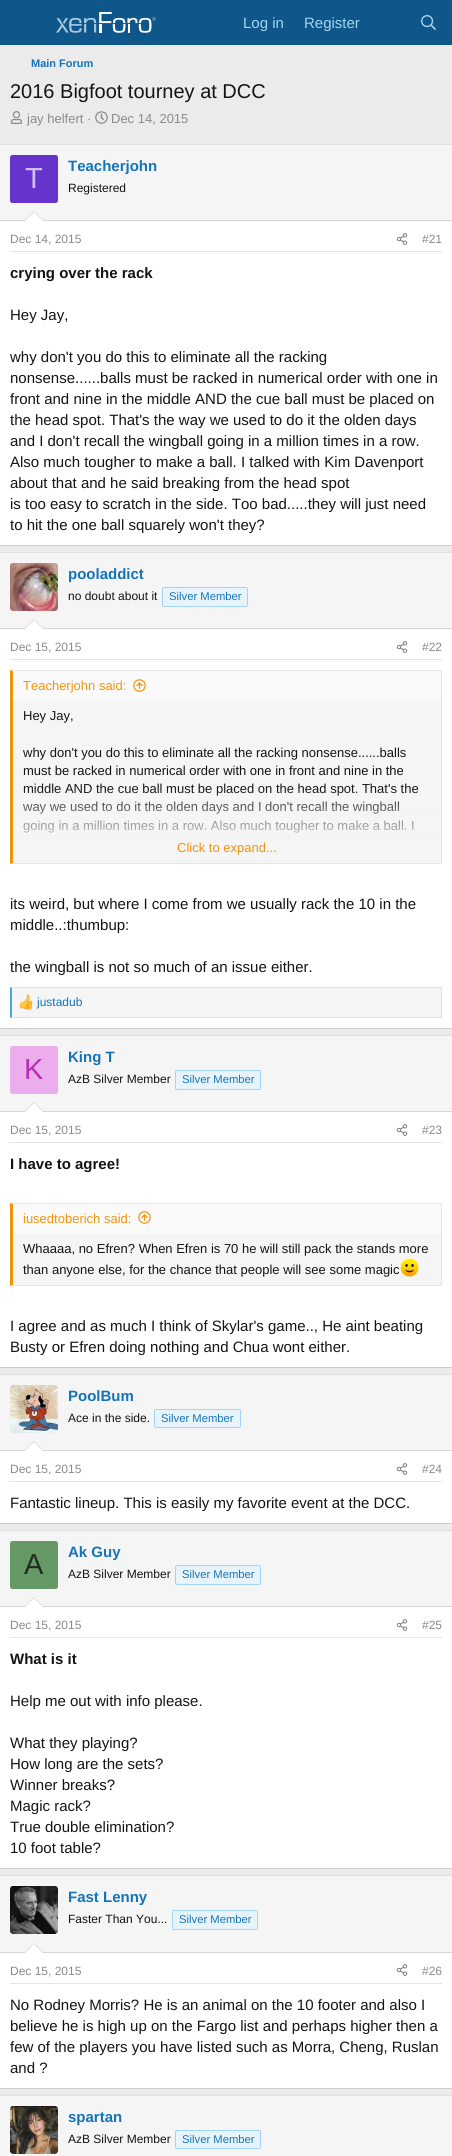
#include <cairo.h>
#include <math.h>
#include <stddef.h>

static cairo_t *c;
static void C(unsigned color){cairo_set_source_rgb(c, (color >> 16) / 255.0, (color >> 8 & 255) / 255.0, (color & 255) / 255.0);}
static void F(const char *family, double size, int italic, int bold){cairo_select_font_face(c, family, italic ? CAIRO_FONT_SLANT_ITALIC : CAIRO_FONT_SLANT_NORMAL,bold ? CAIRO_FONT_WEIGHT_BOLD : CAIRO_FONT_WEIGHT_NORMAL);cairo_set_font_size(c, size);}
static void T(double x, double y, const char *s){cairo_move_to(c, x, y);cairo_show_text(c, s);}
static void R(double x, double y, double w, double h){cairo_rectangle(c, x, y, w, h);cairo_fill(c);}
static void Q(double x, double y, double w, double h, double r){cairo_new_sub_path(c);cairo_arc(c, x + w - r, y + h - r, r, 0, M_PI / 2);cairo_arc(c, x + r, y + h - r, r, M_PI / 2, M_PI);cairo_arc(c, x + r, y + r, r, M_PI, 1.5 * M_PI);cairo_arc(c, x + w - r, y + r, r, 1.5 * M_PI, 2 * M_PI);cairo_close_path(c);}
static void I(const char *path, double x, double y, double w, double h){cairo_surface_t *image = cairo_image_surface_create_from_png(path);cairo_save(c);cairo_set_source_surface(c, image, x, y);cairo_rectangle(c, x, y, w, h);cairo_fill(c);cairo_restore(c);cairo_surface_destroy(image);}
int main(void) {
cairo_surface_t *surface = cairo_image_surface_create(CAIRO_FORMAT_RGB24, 452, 2156);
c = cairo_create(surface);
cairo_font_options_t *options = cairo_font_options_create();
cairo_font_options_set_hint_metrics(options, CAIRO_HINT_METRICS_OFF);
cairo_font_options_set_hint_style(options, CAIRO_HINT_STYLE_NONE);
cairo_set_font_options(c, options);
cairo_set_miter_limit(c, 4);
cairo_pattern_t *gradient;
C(0xebebeb);
cairo_paint(c);
C(0x0f578a);
R(0,0,452,45);
I("1.png",56,12,100,21);
F("Liberation Sans",15,0,0);
C(0xa3d4f5);
T(243,28,"Log in");
T(304,28,"Register");
I("2.png",421,15,15,15);
F("Liberation Sans",11,0,1);
C(0x1474b8);
T(31,67,"Main Forum");
F("Liberation Sans",20,0,0);
C(0x141414);
T(10,98,"2016 Bigfoot tourney at DCC");
I("3.png",10,111,13,13);
F("Liberation Sans",13,0,0);
C(0x8a8a8a);
T(27,123,"jay helfert ·");
I("4.png",95,111,13,13);
T(111,123,"Dec 14, 2015");
C(0xffffff);
R(0,221,452,324);
C(0xe0e0e0);
R(0,144,452,1);
C(0xcccccc);
R(0,545,452,1);
C(0xf5f5f5);
R(0,145,452,75);
C(0xd6d6d6);
R(0,220,452,1);
C(0x6633cc);
Q(10,155,48,48,2.5);
cairo_fill(c);
F("Liberation Sans",29,0,0);
C(0xd1c2f0);
T(25,188,"T");
F("Liberation Sans",15,0,1);
C(0x1474b8);
T(68,171,"Teacherjohn");
F("Liberation Sans",12,0,0);
C(0x141414);
T(68,192,"Registered");
C(0xd6d6d6);
cairo_new_path(c);
cairo_move_to(c,44,221);
cairo_line_to(c,24,221);
cairo_line_to(c,34,211);
cairo_close_path(c);
cairo_fill(c);
C(0xffffff);
cairo_new_path(c);
cairo_move_to(c,43,221);
cairo_line_to(c,25,221);
cairo_line_to(c,34,212);
cairo_close_path(c);
cairo_fill(c);
C(0xe5e5e5);
R(10,251,432,1);
C(0x8a8a8a);
T(10,243,"Dec 14, 2015");
I("5.png",396,233,12,12);
T(422,243,"#21");
F("Liberation Sans",15,0,1);
C(0x141414);
T(10,278,"crying over the rack");
F("Liberation Sans",15,0,0);
T(10,320,"Hey Jay,");
T(10,362,"why don't you do this to eliminate all the racking");
T(10,383,"nonsense......balls must be racked in numerical order with one in");
T(10,404,"front and nine in the middle AND the cue ball must be placed on");
T(10,425,"the head spot. That's the way we used to do it the olden days");
T(10,446,"and I don't recall the wingball going in a million times in a row.");
T(10,467,"Also much tougher to make a ball. I talked with Kim Davenport");
T(10,488,"about that and he said breaking from the head spot");
T(10,509,"is too easy to scratch in the side. Too bad.....they will just need");
T(10,530,"to hit the one ball squarely won't they?");
C(0xffffff);
R(0,629,452,399);
C(0xe0e0e0);
R(0,552,452,1);
C(0xcccccc);
R(0,1028,452,1);
C(0xf5f5f5);
R(0,553,452,75);
C(0xd6d6d6);
R(0,628,452,1);
C(0xffffff);
Q(10,563,48,48,2.5);
cairo_fill(c);
I("6.png",10,563,48,48);
F("Liberation Sans",15,0,1);
C(0x1474b8);
T(68,579,"pooladdict");
F("Liberation Sans",12,0,0);
C(0x141414);
T(68,600,"no doubt about it");
C(0xe8f4fc);
Q(162.5,587.5,85,19,1.5);
cairo_fill_preserve(c);
C(0xa3d4f5);
cairo_set_line_width(c,1);
cairo_stroke(c);
F("Liberation Sans",11.25,0,0);
C(0x1474b8);
T(169,600,"Silver Member");
C(0xd6d6d6);
cairo_new_path(c);
cairo_move_to(c,44,629);
cairo_line_to(c,24,629);
cairo_line_to(c,34,619);
cairo_close_path(c);
cairo_fill(c);
C(0xffffff);
cairo_new_path(c);
cairo_move_to(c,43,629);
cairo_line_to(c,25,629);
cairo_line_to(c,34,620);
cairo_close_path(c);
cairo_fill(c);
C(0xe5e5e5);
R(10,659,432,1);
F("Liberation Sans",12,0,0);
C(0x8a8a8a);
T(10,651,"Dec 15, 2015");
I("5.png",396,641,12,12);
T(422,651,"#22");
C(0xf5f5f5);
R(13,701,428,147);
C(0xe5e5e5);
cairo_new_path(c);
cairo_move_to(c,10,670);
cairo_line_to(c,442,670);
cairo_line_to(c,441,671);
cairo_line_to(c,13,671);
cairo_close_path(c);
cairo_fill(c);
R(441,670,1,194);
cairo_new_path(c);
cairo_move_to(c,442,864);
cairo_line_to(c,10,864);
cairo_line_to(c,13,863);
cairo_line_to(c,441,863);
cairo_close_path(c);
cairo_fill(c);
C(0xf2930d);
cairo_new_path(c);
cairo_move_to(c,10,864);
cairo_line_to(c,10,670);
cairo_line_to(c,13,671);
cairo_line_to(c,13,863);
cairo_close_path(c);
cairo_fill(c);
C(0xfafafa);
R(13,671,428,30);
F("Liberation Sans",13,0,0);
C(0xf2930d);
T(23,690,"Teacherjohn said:");
I("7.png",133,679,13,13);
C(0x141414);
T(23,720,"Hey Jay,");
T(23,757,"why don't you do this to eliminate all the racking nonsense......balls");
T(23,775,"must be racked in numerical order with one in front and nine in the");
T(23,793,"middle AND the cue ball must be placed on the head spot. That's the");
T(23,811,"way we used to do it the olden days and I don't recall the wingball");
T(23,830,"going in a million times in a row. Also much tougher to make a ball. I");
gradient = cairo_pattern_create_linear(227,788,227,863);
cairo_pattern_add_color_stop_rgba(gradient,0,0.961,0.961,0.961,0);
cairo_pattern_add_color_stop_rgba(gradient,.8,0.961,0.961,0.961,1);
cairo_set_source(c,gradient);
cairo_pattern_destroy(gradient);
R(13,789,428,74);
C(0xf2930d);
T(177,852,"Click to expand...");
F("Liberation Sans",15,0,0);
C(0x141414);
T(10,909,"its weird, but where I come from we usually rack the 10 in the");
T(10,930,"middle..:thumbup:");
T(10,972,"the wingball is not so much of an issue either.");
C(0xf5f5f5);
R(12,988,429,29);
C(0xe0e0e0);
cairo_new_path(c);
cairo_move_to(c,10,987);
cairo_line_to(c,442,987);
cairo_line_to(c,441,988);
cairo_line_to(c,12,988);
cairo_close_path(c);
cairo_fill(c);
R(441,987,1,31);
cairo_new_path(c);
cairo_move_to(c,442,1018);
cairo_line_to(c,10,1018);
cairo_line_to(c,12,1017);
cairo_line_to(c,441,1017);
cairo_close_path(c);
cairo_fill(c);
C(0x47a7eb);
cairo_new_path(c);
cairo_move_to(c,10,1018);
cairo_line_to(c,10,987);
cairo_line_to(c,12,988);
cairo_line_to(c,12,1017);
cairo_close_path(c);
cairo_fill(c);
I("8.png",19,994,14,16);
F("Liberation Sans",12,0,0);
C(0x1474b8);
T(37,1006,"justadub");
C(0xffffff);
R(0,1112,452,255);
C(0xe0e0e0);
R(0,1035,452,1);
C(0xcccccc);
R(0,1367,452,1);
C(0xf5f5f5);
R(0,1036,452,75);
C(0xd6d6d6);
R(0,1111,452,1);
C(0xebadeb);
Q(10,1046,48,48,2.5);
cairo_fill(c);
F("Liberation Sans",29,0,0);
C(0xb82eb8);
T(24,1079,"K");
F("Liberation Sans",15,0,1);
C(0x1474b8);
T(68,1062,"King T");
F("Liberation Sans",12,0,0);
C(0x141414);
T(68,1083,"AzB Silver Member");
C(0xe8f4fc);
Q(175.5,1070.5,85,19,1.5);
cairo_fill_preserve(c);
C(0xa3d4f5);
cairo_stroke(c);
F("Liberation Sans",11.25,0,0);
C(0x1474b8);
T(182,1083,"Silver Member");
C(0xd6d6d6);
cairo_new_path(c);
cairo_move_to(c,44,1112);
cairo_line_to(c,24,1112);
cairo_line_to(c,34,1102);
cairo_close_path(c);
cairo_fill(c);
C(0xffffff);
cairo_new_path(c);
cairo_move_to(c,43,1112);
cairo_line_to(c,25,1112);
cairo_line_to(c,34,1103);
cairo_close_path(c);
cairo_fill(c);
C(0xe5e5e5);
R(10,1142,432,1);
F("Liberation Sans",12,0,0);
C(0x8a8a8a);
T(10,1134,"Dec 15, 2015");
I("5.png",396,1124,12,12);
T(422,1134,"#23");
F("Liberation Sans",15,0,1);
C(0x141414);
T(10,1169,"I have to agree!");
C(0xf5f5f5);
R(13,1234,428,51);
C(0xe5e5e5);
cairo_new_path(c);
cairo_move_to(c,10,1203);
cairo_line_to(c,442,1203);
cairo_line_to(c,441,1204);
cairo_line_to(c,13,1204);
cairo_close_path(c);
cairo_fill(c);
R(441,1203,1,83);
cairo_new_path(c);
cairo_move_to(c,442,1286);
cairo_line_to(c,10,1286);
cairo_line_to(c,13,1285);
cairo_line_to(c,441,1285);
cairo_close_path(c);
cairo_fill(c);
C(0xf2930d);
cairo_new_path(c);
cairo_move_to(c,10,1286);
cairo_line_to(c,10,1203);
cairo_line_to(c,13,1204);
cairo_line_to(c,13,1285);
cairo_close_path(c);
cairo_fill(c);
C(0xfafafa);
R(13,1204,428,30);
F("Liberation Sans",13,0,0);
C(0xf2930d);
T(23,1223,"iusedtoberich said:");
I("7.png",138,1211,13,13);
C(0x141414);
T(23,1253,"Whaaaa, no Efren? When Efren is 70 he will still pack the stands more");
T(23,1274,"than anyone else, for the chance that people will see some magic");
I("9.png",400,1258,19,19);
F("Liberation Sans",15,0,0);
T(10,1331,"I agree and as much I think of Skylar's game.., He aint beating");
T(10,1352,"Busty or Efren doing nothing and Chua wont either.");
C(0xffffff);
R(0,1451,452,72);
C(0xe0e0e0);
R(0,1374,452,1);
C(0xcccccc);
R(0,1523,452,1);
C(0xf5f5f5);
R(0,1375,452,75);
C(0xd6d6d6);
R(0,1450,452,1);
C(0xffffff);
Q(10,1385,48,48,2.5);
cairo_fill(c);
I("10.png",10,1385,48,48);
F("Liberation Sans",15,0,1);
C(0x1474b8);
T(68,1401,"PoolBum");
F("Liberation Sans",12,0,0);
C(0x141414);
T(68,1422,"Ace in the side.");
C(0xe8f4fc);
Q(154.5,1409.5,86,18,1.5);
cairo_fill_preserve(c);
C(0xa3d4f5);
cairo_stroke(c);
F("Liberation Sans",11.25,0,0);
C(0x1474b8);
T(161,1422,"Silver Member");
C(0xd6d6d6);
cairo_new_path(c);
cairo_move_to(c,44,1451);
cairo_line_to(c,24,1451);
cairo_line_to(c,34,1441);
cairo_close_path(c);
cairo_fill(c);
C(0xffffff);
cairo_new_path(c);
cairo_move_to(c,43,1451);
cairo_line_to(c,25,1451);
cairo_line_to(c,34,1442);
cairo_close_path(c);
cairo_fill(c);
C(0xe5e5e5);
R(10,1481,432,1);
F("Liberation Sans",12,0,0);
C(0x8a8a8a);
T(10,1473,"Dec 15, 2015");
I("5.png",396,1463,12,12);
T(422,1473,"#24");
F("Liberation Sans",15,0,0);
C(0x141414);
T(10,1508,"Fantastic lineup. This is easily my favorite event at the DCC.");
C(0xffffff);
R(0,1607,452,261);
C(0xe0e0e0);
R(0,1530,452,1);
C(0xcccccc);
R(0,1868,452,1);
C(0xf5f5f5);
R(0,1531,452,75);
C(0xd6d6d6);
R(0,1606,452,1);
C(0x669966);
Q(10,1541,48,48,2.5);
cairo_fill(c);
F("Liberation Sans",29,0,0);
C(0x1f2e1f);
T(24,1574,"A");
F("Liberation Sans",15,0,1);
C(0x1474b8);
T(68,1557,"Ak Guy");
F("Liberation Sans",12,0,0);
C(0x141414);
T(68,1578,"AzB Silver Member");
C(0xe8f4fc);
Q(175.5,1565.5,85,19,1.5);
cairo_fill_preserve(c);
C(0xa3d4f5);
cairo_stroke(c);
F("Liberation Sans",11.25,0,0);
C(0x1474b8);
T(182,1578,"Silver Member");
C(0xd6d6d6);
cairo_new_path(c);
cairo_move_to(c,44,1607);
cairo_line_to(c,24,1607);
cairo_line_to(c,34,1597);
cairo_close_path(c);
cairo_fill(c);
C(0xffffff);
cairo_new_path(c);
cairo_move_to(c,43,1607);
cairo_line_to(c,25,1607);
cairo_line_to(c,34,1598);
cairo_close_path(c);
cairo_fill(c);
C(0xe5e5e5);
R(10,1637,432,1);
F("Liberation Sans",12,0,0);
C(0x8a8a8a);
T(10,1629,"Dec 15, 2015");
I("5.png",396,1619,12,12);
T(422,1629,"#25");
F("Liberation Sans",15,0,1);
C(0x141414);
T(10,1664,"What is it");
F("Liberation Sans",15,0,0);
T(10,1706,"Help me out with info please.");
T(10,1748,"What they playing?");
T(10,1769,"How long are the sets?");
T(10,1790,"Winner breaks?");
T(10,1811,"Magic rack?");
T(10,1832,"True double elimination?");
T(10,1853,"10 foot table?");
C(0xffffff);
R(0,1953,452,135);
C(0xe0e0e0);
R(0,1875,452,1);
C(0xcccccc);
R(0,2088,452,1);
C(0xf5f5f5);
R(0,1876,452,76);
C(0xd6d6d6);
R(0,1952,452,1);
C(0xffffff);
Q(10,1886,48,48,2.5);
cairo_fill(c);
I("11.png",10,1886,48,48);
F("Liberation Sans",15,0,1);
C(0x1474b8);
T(68,1902,"Fast Lenny");
F("Liberation Sans",12,0,0);
C(0x141414);
T(68,1923,"Faster Than You...");
C(0xe8f4fc);
Q(172.5,1910.5,85,19,1.5);
cairo_fill_preserve(c);
C(0xa3d4f5);
cairo_stroke(c);
F("Liberation Sans",11.25,0,0);
C(0x1474b8);
T(179,1923,"Silver Member");
C(0xd6d6d6);
cairo_new_path(c);
cairo_move_to(c,44,1953);
cairo_line_to(c,24,1953);
cairo_line_to(c,34,1943);
cairo_close_path(c);
cairo_fill(c);
C(0xffffff);
cairo_new_path(c);
cairo_move_to(c,43,1953);
cairo_line_to(c,25,1953);
cairo_line_to(c,34,1944);
cairo_close_path(c);
cairo_fill(c);
C(0xe5e5e5);
R(10,1983,432,1);
F("Liberation Sans",12,0,0);
C(0x8a8a8a);
T(10,1975,"Dec 15, 2015");
I("5.png",396,1964,12,12);
T(422,1975,"#26");
F("Liberation Sans",15,0,0);
C(0x141414);
T(10,2010,"No Rodney Morris? He is an animal on the 10 footer and also I");
T(10,2031,"believe he is high up on the Fargo list and perhaps higher then a");
T(10,2052,"few of the players you have listed such as Morra, Cheng, Ruslan");
T(10,2073,"and ?");
C(0xe0e0e0);
R(0,2095,452,1);
C(0xf5f5f5);
R(0,2096,452,60);
C(0xffffff);
Q(10,2106,48,48,2.5);
cairo_fill(c);
I("12.png",10,2106,48,48);
F("Liberation Sans",15,0,1);
C(0x1474b8);
T(68,2122,"spartan");
F("Liberation Sans",12,0,0);
C(0x141414);
T(68,2143,"AzB Silver Member");
C(0xe8f4fc);
Q(175.5,2130.5,85,18,1.5);
cairo_fill_preserve(c);
C(0xa3d4f5);
cairo_stroke(c);
F("Liberation Sans",11.25,0,0);
C(0x1474b8);
T(182,2143,"Silver Member");
cairo_surface_write_to_png(surface, "o.png");
cairo_font_options_destroy(options);
cairo_destroy(c);
cairo_surface_destroy(surface);
return 0;
}
